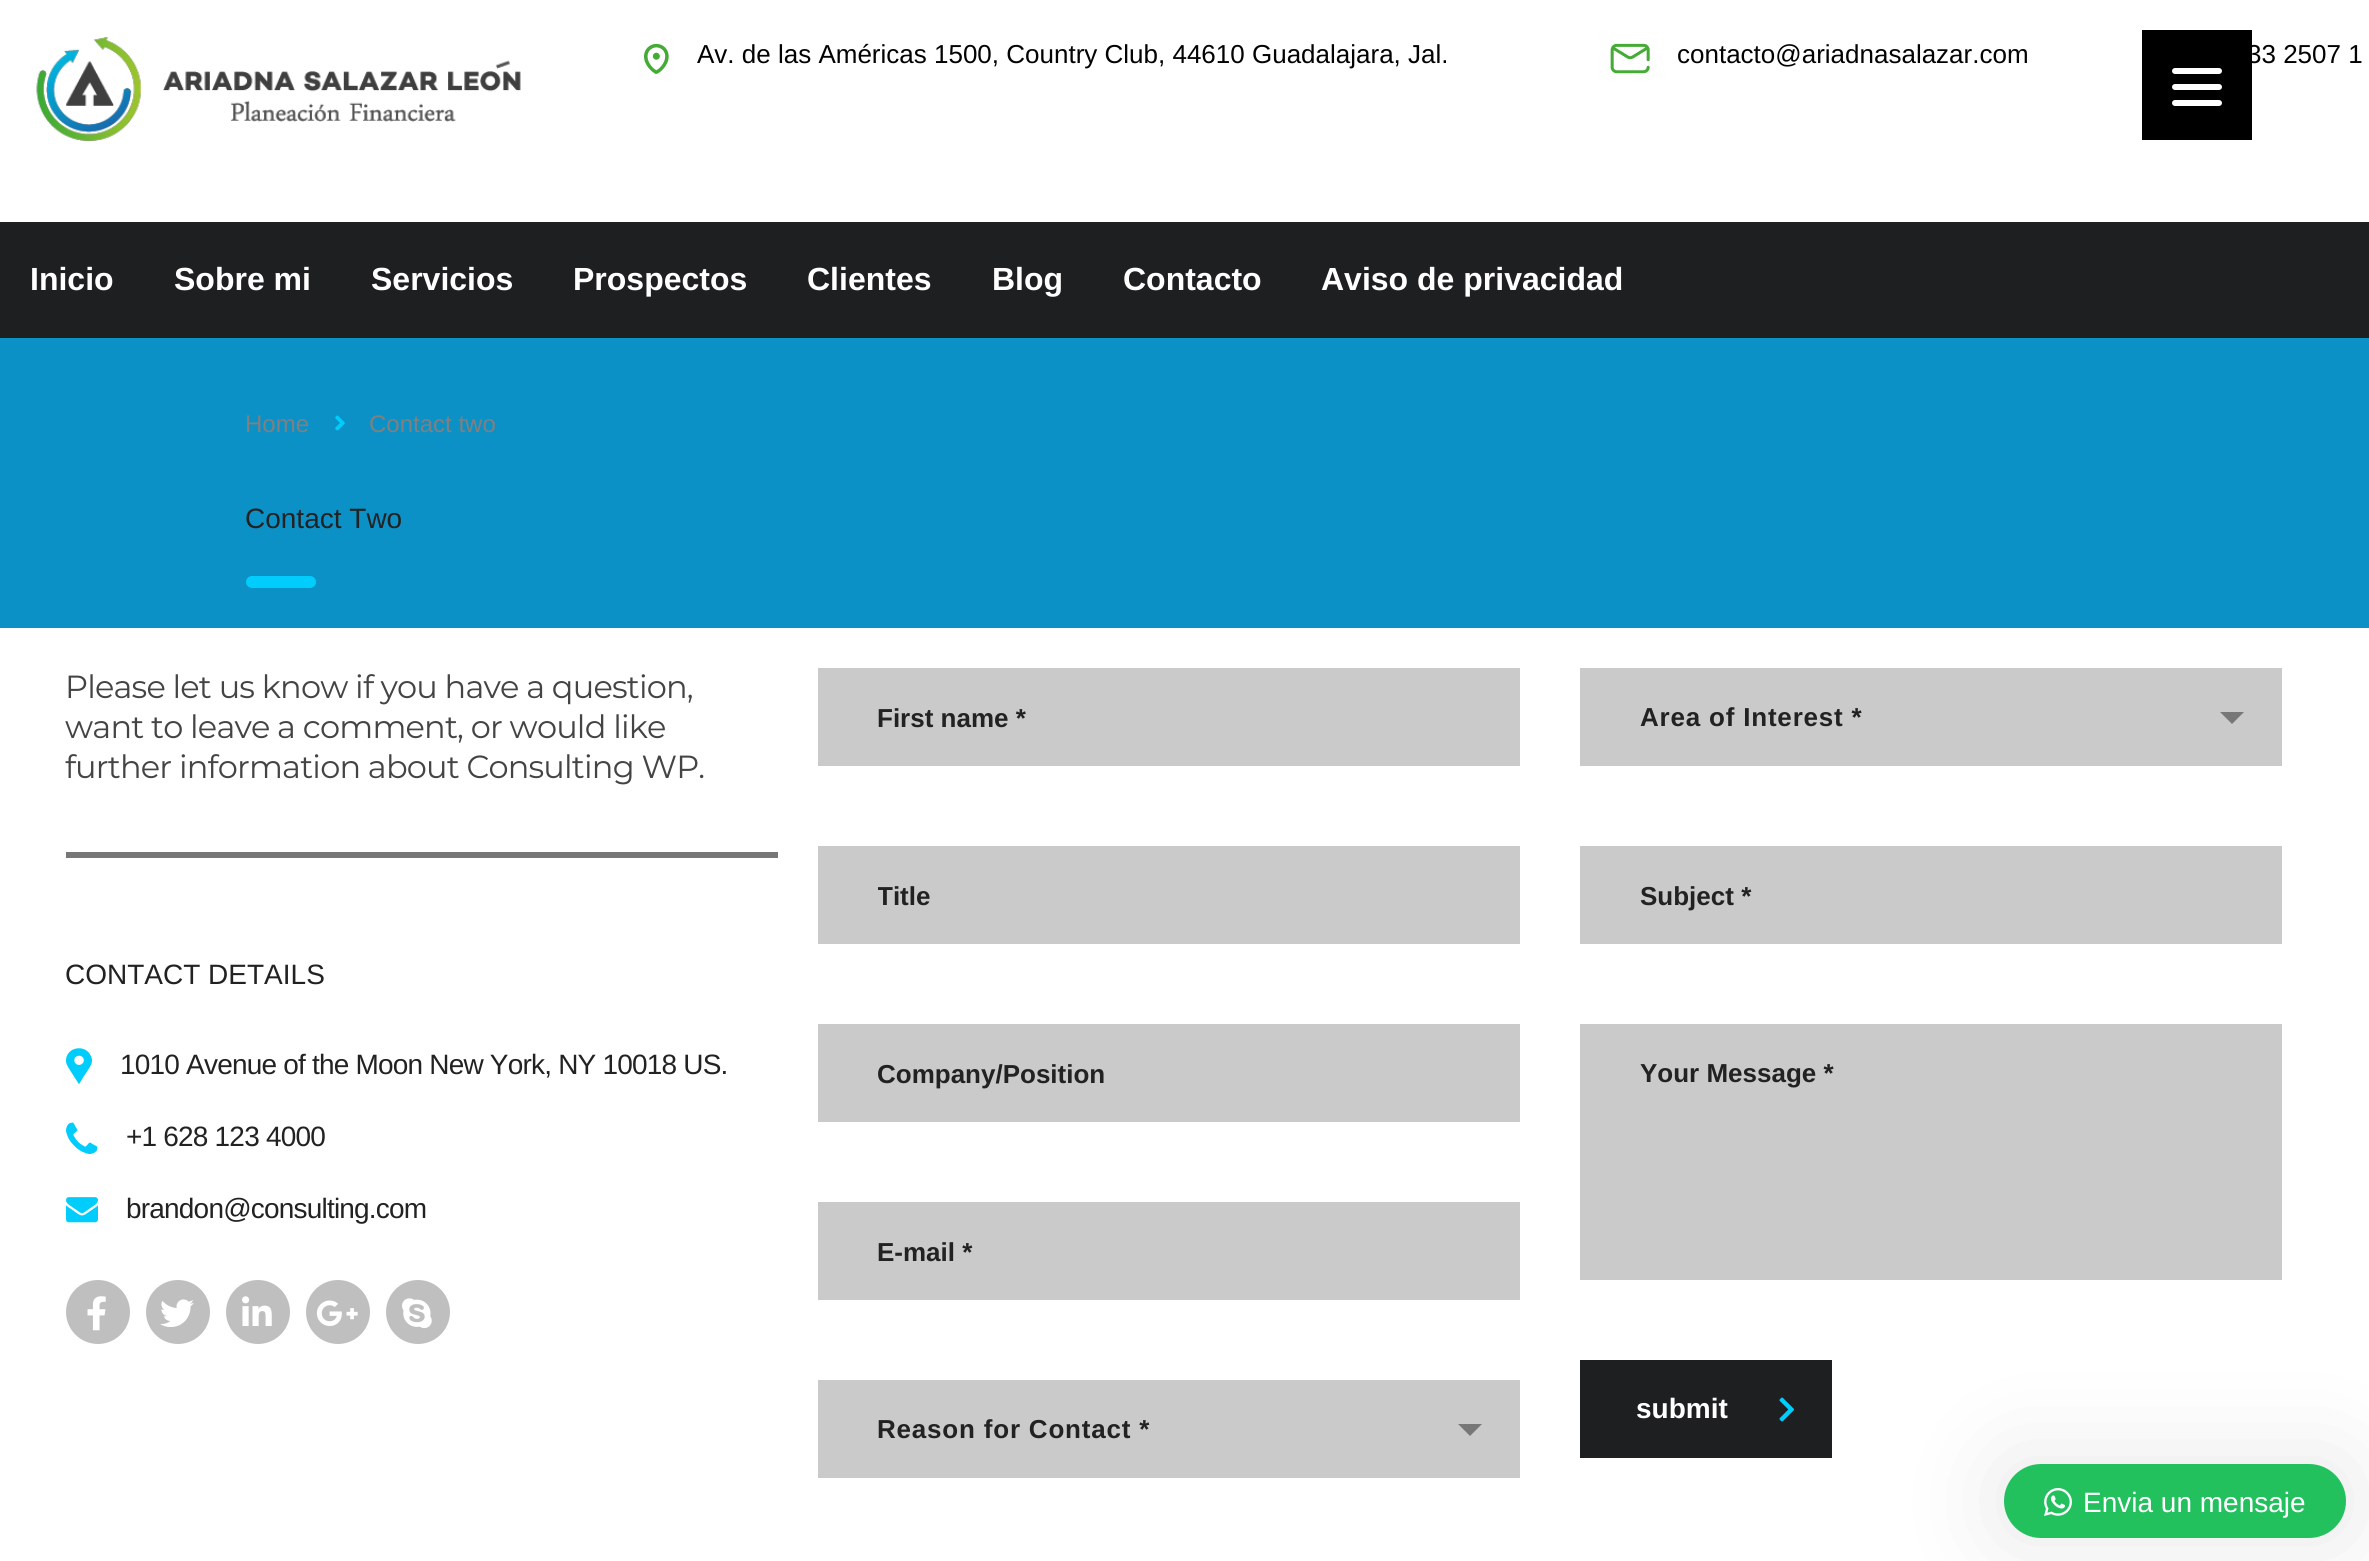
#include <cairo.h>
#include <math.h>
#include <stddef.h>

static cairo_t *c;
static void C(unsigned color){cairo_set_source_rgb(c, (color >> 16) / 255.0, (color >> 8 & 255) / 255.0, (color & 255) / 255.0);}
static void F(const char *family, double size, int italic, int bold){cairo_select_font_face(c, family, italic ? CAIRO_FONT_SLANT_ITALIC : CAIRO_FONT_SLANT_NORMAL,bold ? CAIRO_FONT_WEIGHT_BOLD : CAIRO_FONT_WEIGHT_NORMAL);cairo_set_font_size(c, size);}
static void T(double x, double y, const char *s){cairo_move_to(c, x, y);cairo_show_text(c, s);}
static void L(double x, double y, const char *s, double letter, double word){cairo_move_to(c, x, y);while (*s) {char ch[5] = {0};int n = 0;do ch[n++] = *s++; while ((*s & 0xC0) == 0x80);cairo_show_text(c, ch);cairo_rel_move_to(c, letter + word * (*ch == ' '), 0);}}
static void R(double x, double y, double w, double h){cairo_rectangle(c, x, y, w, h);cairo_fill(c);}
static void Q(double x, double y, double w, double h, double r){cairo_new_sub_path(c);cairo_arc(c, x + w - r, y + h - r, r, 0, M_PI / 2);cairo_arc(c, x + r, y + h - r, r, M_PI / 2, M_PI);cairo_arc(c, x + r, y + r, r, M_PI, 1.5 * M_PI);cairo_arc(c, x + w - r, y + r, r, 1.5 * M_PI, 2 * M_PI);cairo_close_path(c);}
static void S(double x, double y, double w, double h, double r, double blur, double alpha){cairo_push_group_with_content(c, CAIRO_CONTENT_ALPHA);cairo_set_operator(c, CAIRO_OPERATOR_SOURCE);for (int i = 15; i >= -15 && fmin(w, h) + blur * i / 3 > 0; i -= 2) {double e = blur * i / 6;cairo_set_source_rgba(c, 0, 0, 0, alpha * erfc((i - 1) / 8.5) / 2);Q(x - e, y - e, w + 2 * e, h + 2 * e, fmax(0, fmin(r + e + blur * .6, fmin(w, h) / 2 + e)));cairo_fill(c);}cairo_pattern_t *soft = cairo_pop_group(c);cairo_mask(c, soft);cairo_pattern_destroy(soft);}
static void I(const char *path, double x, double y, double w, double h){cairo_surface_t *image = cairo_image_surface_create_from_png(path);cairo_save(c);cairo_set_source_surface(c, image, x, y);cairo_rectangle(c, x, y, w, h);cairo_fill(c);cairo_restore(c);cairo_surface_destroy(image);}
int main(void) {
cairo_surface_t *surface = cairo_image_surface_create(CAIRO_FORMAT_RGB24, 2369, 1561);
c = cairo_create(surface);
cairo_font_options_t *options = cairo_font_options_create();
cairo_font_options_set_hint_metrics(options, CAIRO_HINT_METRICS_OFF);
cairo_font_options_set_hint_style(options, CAIRO_HINT_STYLE_NONE);
cairo_set_font_options(c, options);
cairo_set_miter_limit(c, 4);
C(0xffffff);
cairo_paint(c);
F("Liberation Sans",26,0,0);
C(0x020202);
T(2247,63,"33 2507 1");
C(0x000000);
R(2142,30,110,110);
C(0xffffff);
Q(2172,84,50,6,3);
cairo_fill(c);
Q(2172,68,50,6,3);
cairo_fill(c);
Q(2172,100,50,6,3);
cairo_fill(c);
I("1.png",36,37,485,104);
I("2.png",644,43,25,31);
C(0x020202);
T(697,63,"Av. de las Américas 1500, Country Club, 44610 Guadalajara, Jal.");
I("3.png",1610,43,40,31);
T(1677,63,"contacto@ariadnasalazar.com");
C(0x1e1f21);
R(0,222,2369,116);
F("Liberation Sans",32,0,1);
C(0xffffff);
T(30,290,"Inicio");
T(174,290,"Sobre mi");
T(371,290,"Servicios");
T(573,290,"Prospectos");
T(807,290,"Clientes");
T(992,290,"Blog");
T(1123,290,"Contacto");
T(1321,290,"Aviso de privacidad");
C(0x0b91c6);
R(0,338,2369,290);
F("Liberation Sans",24,0,0);
C(0x808080);
T(245,432,"Home");
I("4.png",335,415,10,16);
T(369,432,"Contact two");
F("Liberation Sans",28,0,0);
C(0x222222);
T(245,528,"Contact Two");
C(0x00cdfb);
Q(246,576,70,12,6);
cairo_fill(c);
C(0x777777);
R(66,852,712,6);
F("Montserrat",32,0,0);
C(0x444444);
L(65,698,"Please let us know if you have a question,",-.8,0);
L(65,738,"want to leave a comment, or would like",-.8,0);
L(65,778,"further information about Consulting WP.",-.8,0);
F("Liberation Sans",28,0,0);
C(0x222222);
T(65,984,"CONTACT DETAILS");
I("5.png",66,1048,26,36);
L(120,1074,"1010 Avenue of the Moon New York, NY 10018 US.",-.8,0);
I("6.png",66,1122,32,32);
L(126,1146,"+1 628 123 4000",-.8,0);
I("7.png",66,1197,32,26);
L(126,1218,"brandon@consulting.com",-.8,0);
C(0xbfbfbf);
cairo_new_path(c);
cairo_arc(c,98,1312,32,0,2 * M_PI);
cairo_fill(c);
I("8.png",87,1296,19,35);
cairo_arc(c,178,1312,32,0,2 * M_PI);
cairo_fill(c);
I("9.png",160,1299,34,28);
cairo_arc(c,258,1312,32,0,2 * M_PI);
cairo_fill(c);
I("10.png",242,1296,30,30);
cairo_arc(c,338,1312,32,0,2 * M_PI);
cairo_fill(c);
I("11.png",316,1300,42,26);
cairo_arc(c,418,1312,32,0,2 * M_PI);
cairo_fill(c);
I("12.png",402,1298,30,31);
C(0xcacaca);
R(818,668,702,98);
F("Liberation Sans",26,0,1);
C(0x222222);
T(877,727,"First name *");
C(0xcacaca);
R(818,846,702,98);
cairo_save(c);
cairo_rectangle(c,878,882,582,30);
cairo_clip(c);
C(0x222222);
T(877,905,"Title");
cairo_restore(c);
R(818,1024,702,98);
C(0x222222);
T(877,1083,"Company/Position");
C(0xcacaca);
R(818,1202,702,98);
C(0x222222);
T(877,1261,"E-mail *");
C(0xcacaca);
R(818,1380,702,98);
C(0x222222);
L(877,1438,"Reason for Contact *",.8,0);
C(0x777777);
cairo_new_path(c);
cairo_move_to(c,1458,1424);
cairo_line_to(c,1482,1424);
cairo_line_to(c,1470,1436);
cairo_close_path(c);
cairo_fill(c);
C(0xcacaca);
R(1580,668,702,98);
C(0x222222);
L(1640,726,"Area of Interest *",.8,0);
C(0x777777);
cairo_new_path(c);
cairo_move_to(c,2220,712);
cairo_line_to(c,2244,712);
cairo_line_to(c,2232,724);
cairo_close_path(c);
cairo_fill(c);
C(0xcacaca);
R(1580,846,702,98);
C(0x222222);
T(1640,905,"Subject *");
C(0xcacaca);
R(1580,1024,702,256);
C(0x222222);
T(1640,1082,"Your Message *");
C(0x1e1f21);
R(1580,1360,252,98);
F("Liberation Sans",28,0,1);
C(0xffffff);
T(1636,1418,"submit");
I("13.png",1779,1397,15,25);
C(0x000000);
S(2004,1464,342,74,37,50,.1);
C(0x22c15e);
Q(2004,1464,342,74,37);
cairo_fill(c);
I("14.png",2044,1488,28,28);
F("Liberation Sans",28,0,0);
C(0xffffff);
T(2083,1512,"Envia un mensaje");
cairo_surface_write_to_png(surface, "o.png");
cairo_font_options_destroy(options);
cairo_destroy(c);
cairo_surface_destroy(surface);
return 0;
}
